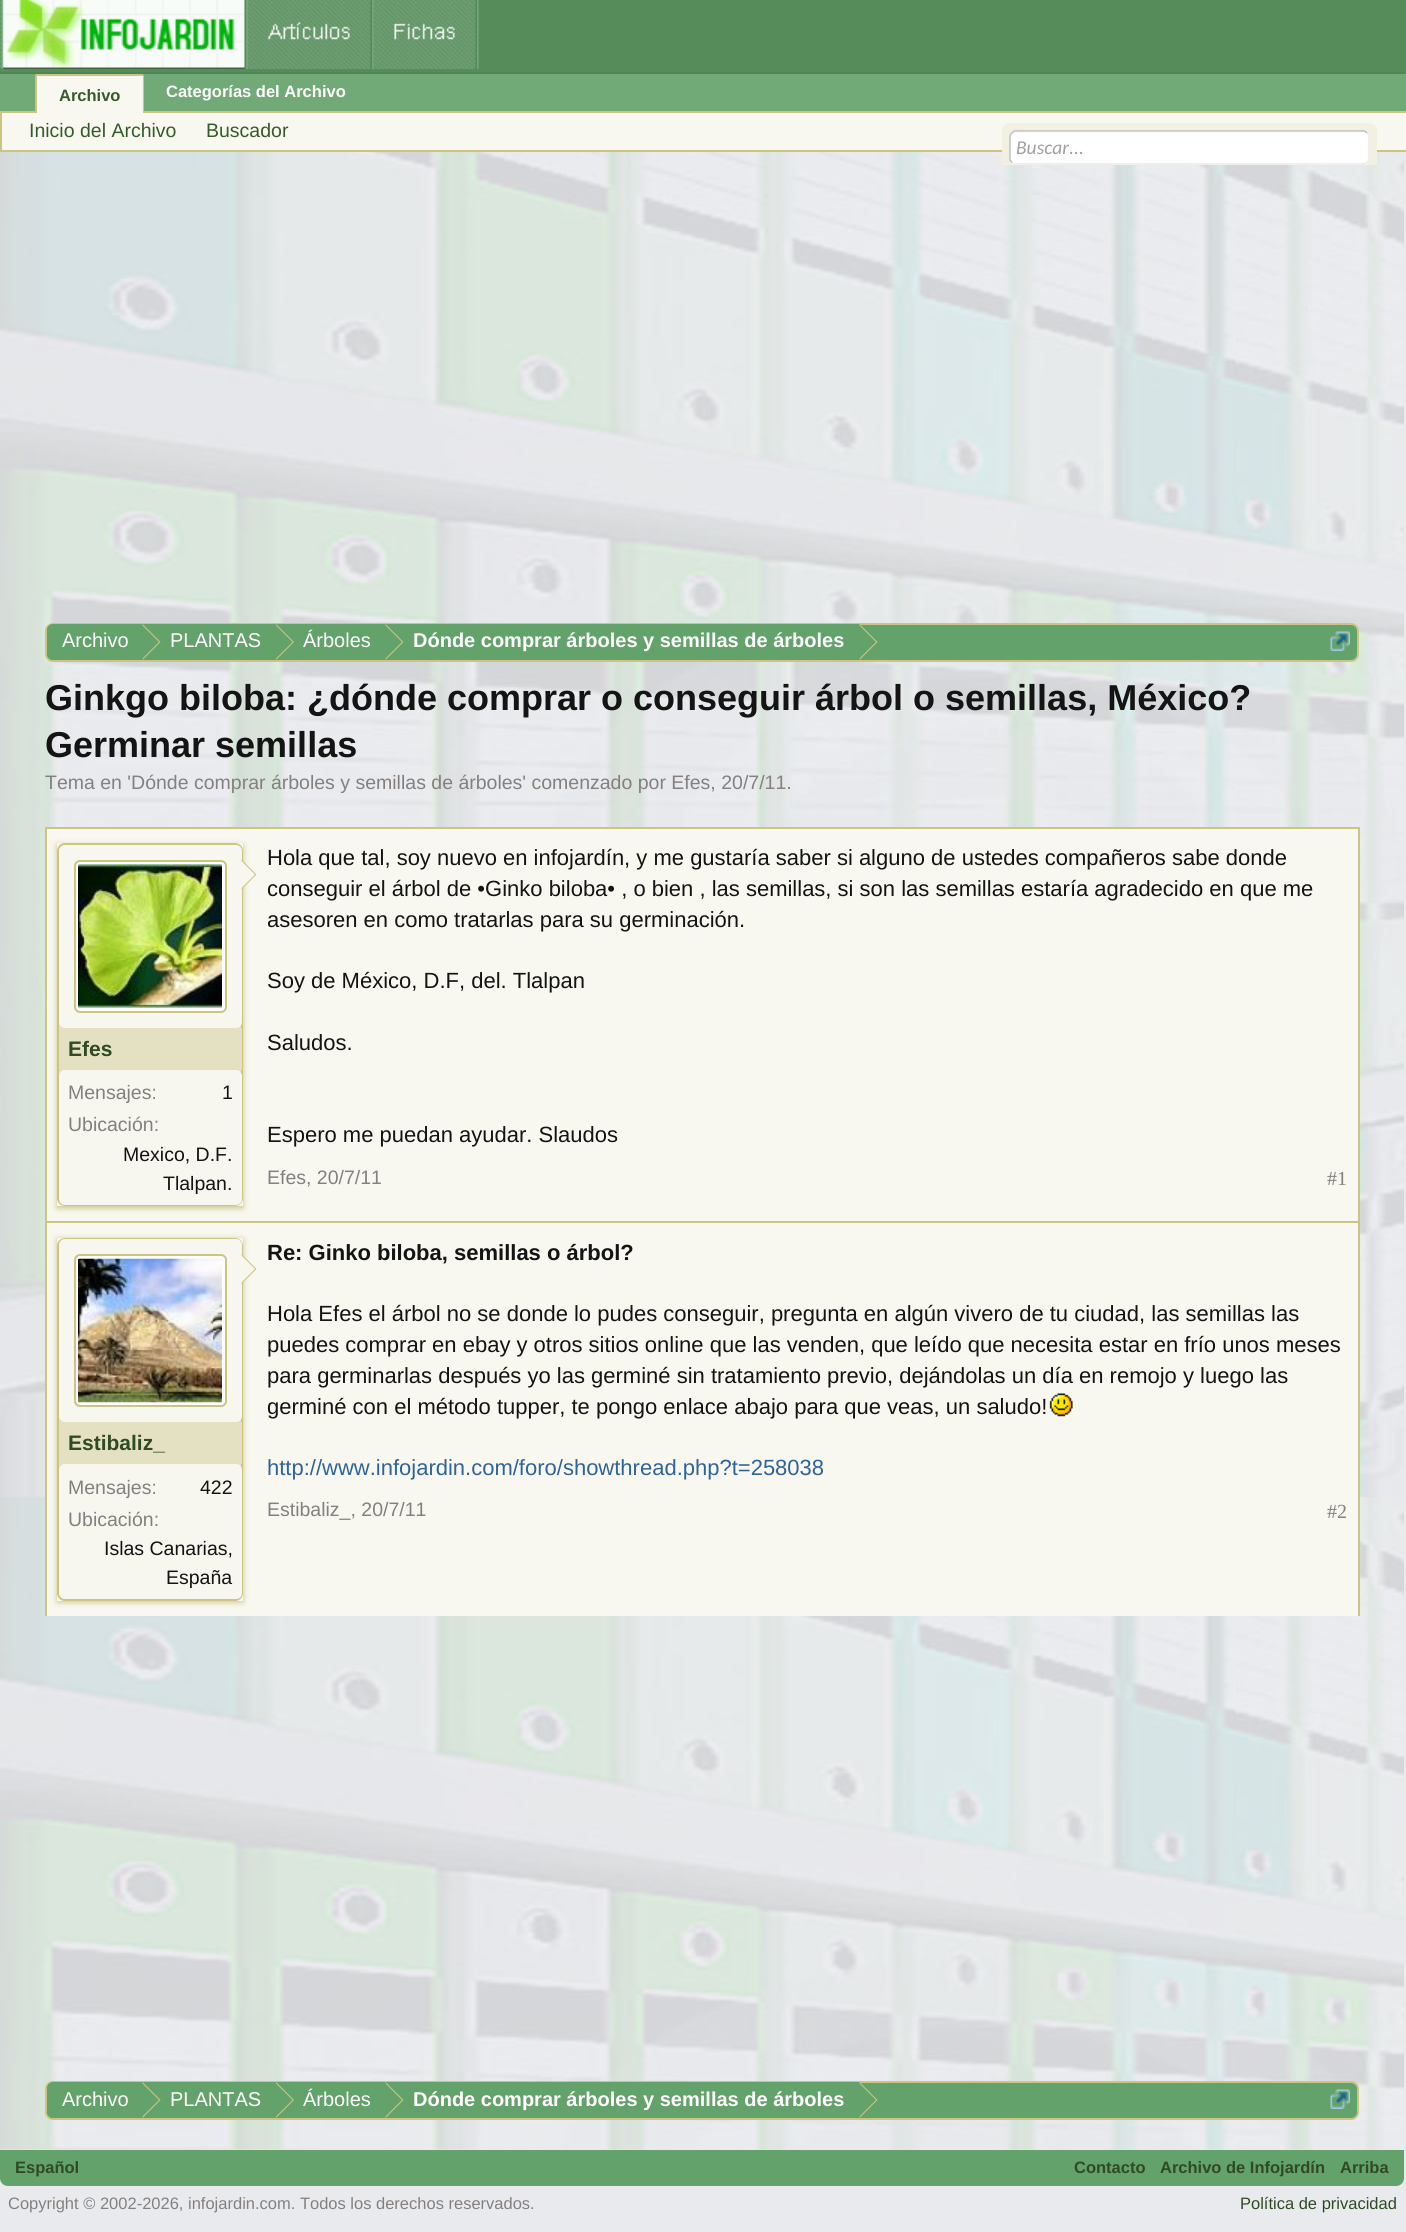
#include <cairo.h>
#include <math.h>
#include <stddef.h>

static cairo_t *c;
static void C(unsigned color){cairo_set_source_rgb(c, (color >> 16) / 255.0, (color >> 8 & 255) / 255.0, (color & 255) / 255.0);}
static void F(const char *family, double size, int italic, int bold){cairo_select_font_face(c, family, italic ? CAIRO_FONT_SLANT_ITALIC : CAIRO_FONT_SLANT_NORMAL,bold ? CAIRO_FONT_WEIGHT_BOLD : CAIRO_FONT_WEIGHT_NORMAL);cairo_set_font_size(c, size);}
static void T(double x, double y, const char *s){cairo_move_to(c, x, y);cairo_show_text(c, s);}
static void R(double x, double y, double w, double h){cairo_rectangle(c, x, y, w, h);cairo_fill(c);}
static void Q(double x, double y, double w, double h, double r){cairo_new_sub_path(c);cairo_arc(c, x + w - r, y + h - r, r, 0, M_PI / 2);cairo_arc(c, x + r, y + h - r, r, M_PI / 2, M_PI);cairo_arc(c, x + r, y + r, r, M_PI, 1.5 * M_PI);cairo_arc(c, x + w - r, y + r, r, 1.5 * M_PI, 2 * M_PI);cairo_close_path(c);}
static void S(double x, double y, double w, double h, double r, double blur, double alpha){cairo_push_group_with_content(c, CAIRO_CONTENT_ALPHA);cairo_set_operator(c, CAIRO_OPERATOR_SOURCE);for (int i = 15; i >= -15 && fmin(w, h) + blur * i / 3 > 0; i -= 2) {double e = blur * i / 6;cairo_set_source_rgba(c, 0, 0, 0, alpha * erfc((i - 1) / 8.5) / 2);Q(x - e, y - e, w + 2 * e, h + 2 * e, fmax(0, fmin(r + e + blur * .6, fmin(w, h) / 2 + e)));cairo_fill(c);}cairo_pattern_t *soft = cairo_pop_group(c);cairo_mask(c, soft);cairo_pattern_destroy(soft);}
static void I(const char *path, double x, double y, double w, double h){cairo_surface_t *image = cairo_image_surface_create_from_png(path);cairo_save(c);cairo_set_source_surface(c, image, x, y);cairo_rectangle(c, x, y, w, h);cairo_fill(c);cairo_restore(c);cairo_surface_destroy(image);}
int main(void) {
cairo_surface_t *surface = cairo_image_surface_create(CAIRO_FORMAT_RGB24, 1406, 2232);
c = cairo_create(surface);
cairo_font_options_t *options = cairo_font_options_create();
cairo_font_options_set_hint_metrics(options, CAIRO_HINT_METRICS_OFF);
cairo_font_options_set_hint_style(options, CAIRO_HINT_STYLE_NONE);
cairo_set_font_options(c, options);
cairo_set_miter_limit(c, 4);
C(0xe9eaed);
cairo_paint(c);
C(0x558c5a);
R(0,0,1406,72);
I("1.png",0,0,479,69);
C(0x71a977);
R(0,74,1406,37);
C(0x518456);
R(0,72,1406,2);
C(0xcbc483);
R(0,111,1406,2);
C(0xf8f8f1);
cairo_new_path(c);
cairo_move_to(c,38,74);
cairo_line_to(c,141,74);
cairo_curve_to(c,142.5,74,144,75.5,144,77);
cairo_line_to(c,144,116);
cairo_line_to(c,35,116);
cairo_line_to(c,35,77);
cairo_curve_to(c,35,75.5,36.5,74,38,74);
cairo_close_path(c);
cairo_fill(c);
C(0xcbc483);
R(143,75,2,41);
C(0x71a977);
R(144,75,1,36);
F("Liberation Sans",16.5,0,1);
C(0xffffff);
T(166,97,"Categorías del Archivo");
C(0xcbc483);
R(36,74,107,2);
R(35,75,2,41);
C(0x345c2b);
T(59,101,"Archivo");
C(0xf8f8f1);
R(2,113,1404,37);
C(0xcbc483);
R(0,150,1406,2);
R(0,113,2,39);
F("Liberation Sans",19.5,0,0);
C(0x345c2b);
T(29,137,"Inicio del Archivo");
T(206,137,"Buscador");
I("2.png",0,152,1404,1998);
C(0xf2f0e1);
Q(1002,123,375,42,8);
cairo_fill(c);
R(1002,159,375,6);
C(0xffffff);
Q(1010,131,360,34,6);
cairo_fill(c);
cairo_new_path(c);
cairo_move_to(c,1367,133);
cairo_curve_to(c,1368,134,1369,135,1369,136.5);
cairo_line_to(c,1369,159);
cairo_curve_to(c,1369,160.5,1368,161.5,1367,162.5);
cairo_curve_to(c,1366,163.5,1365,164,1363.5,164);
cairo_line_to(c,1015.5,164);
cairo_curve_to(c,1014,164,1013,163.5,1012,162.5);
C(0xe9e9e9);
cairo_set_line_width(c,1.5);
cairo_stroke(c);
cairo_new_path(c);
cairo_move_to(c,1012,162.5);
cairo_curve_to(c,1011,161.5,1010,160.5,1010,159);
cairo_line_to(c,1010,136.5);
cairo_curve_to(c,1010,135,1011,134,1012,133);
cairo_curve_to(c,1013,132,1014,131,1015.5,131);
cairo_line_to(c,1363.5,131);
cairo_curve_to(c,1365,131,1366,132,1367,133);
C(0xc0c0c0);
cairo_stroke(c);
F("Carlito",19.5,1,0);
C(0xa0a0a0);
T(1016,154,"Buscar...");
C(0x64a26b);
Q(46,624,1312,37,7);
cairo_fill_preserve(c);
C(0xcbc483);
cairo_set_line_width(c,2);
cairo_stroke(c);
cairo_save(c);
Q(47,624,1311,36,6);
cairo_clip(c);
C(0x64a26b);
cairo_new_path(c);
cairo_move_to(c,53,624);
cairo_line_to(c,143,624);
cairo_line_to(c,143,662);
cairo_line_to(c,53,662);
cairo_curve_to(c,49.5,662,47,659.5,47,656);
cairo_line_to(c,47,630);
cairo_curve_to(c,47,626.5,49.5,624,53,624);
cairo_close_path(c);
cairo_fill(c);
cairo_restore(c);
F("Liberation Sans",20,0,0);
C(0xffffff);
T(62,647,"Archivo");
C(0x64a26b);
R(143,624,717,1);
C(0xcbc483);
cairo_new_path(c);
cairo_move_to(c,142.5,660);
cairo_line_to(c,142.5,624);
cairo_line_to(c,160.5,642);
cairo_close_path(c);
cairo_fill(c);
C(0x64a26b);
cairo_new_path(c);
cairo_move_to(c,141,660);
cairo_line_to(c,141,624);
cairo_line_to(c,159,642);
cairo_close_path(c);
cairo_fill(c);
C(0xffffff);
T(170,647,"PLANTAS");
C(0xcbc483);
cairo_new_path(c);
cairo_move_to(c,276,660);
cairo_line_to(c,276,624);
cairo_line_to(c,294,642);
cairo_close_path(c);
cairo_fill(c);
C(0x64a26b);
cairo_new_path(c);
cairo_move_to(c,274.5,660);
cairo_line_to(c,274.5,624);
cairo_line_to(c,292.5,642);
cairo_close_path(c);
cairo_fill(c);
C(0xffffff);
T(303,647,"Árboles");
C(0xcbc483);
cairo_new_path(c);
cairo_move_to(c,385.5,660);
cairo_line_to(c,385.5,624);
cairo_line_to(c,403.5,642);
cairo_close_path(c);
cairo_fill(c);
C(0x64a26b);
cairo_new_path(c);
cairo_move_to(c,384,660);
cairo_line_to(c,384,624);
cairo_line_to(c,402,642);
cairo_close_path(c);
cairo_fill(c);
F("Liberation Sans",20,0,1);
C(0xffffff);
T(413,647,"Dónde comprar árboles y semillas de árboles");
C(0xcbc483);
cairo_new_path(c);
cairo_move_to(c,859.5,660);
cairo_line_to(c,859.5,624);
cairo_line_to(c,877.5,642);
cairo_close_path(c);
cairo_fill(c);
C(0x64a26b);
cairo_new_path(c);
cairo_move_to(c,858,660);
cairo_line_to(c,858,624);
cairo_line_to(c,876,642);
cairo_close_path(c);
cairo_fill(c);
I("3.png",1330,631,20,20);
F("Liberation Sans",36,0,1);
C(0x141414);
T(45,710,"Ginkgo biloba: ¿dónde comprar o conseguir árbol o semillas, México?");
T(45,757,"Germinar semillas");
F("Liberation Sans",19.5,0,0);
C(0x848080);
T(45,789,"Tema en 'Dónde comprar árboles y semillas de árboles' comenzado por Efes, 20/7/11.");
C(0xf8f8f1);
R(47,829,1311,392);
C(0xcbc483);
R(45,827,1314,2);
R(1358,827,2,394);
R(45,827,2,394);
cairo_save(c);
cairo_set_fill_rule(c,CAIRO_FILL_RULE_EVEN_ODD);
cairo_new_path(c);
cairo_move_to(c,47,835);
cairo_line_to(c,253,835);
cairo_line_to(c,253,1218);
cairo_line_to(c,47,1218);
cairo_close_path(c);
cairo_move_to(c,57,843);
cairo_line_to(c,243,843);
cairo_line_to(c,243,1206);
cairo_line_to(c,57,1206);
cairo_close_path(c);
cairo_clip(c);
C(0xcbc483);
S(57,845,186,363,0,3,1);
cairo_restore(c);
C(0xe4e1c2);
Q(58,844,184,361,7);
cairo_fill_preserve(c);
C(0xcbc483);
cairo_stroke(c);
C(0xf8f7ef);
Q(59,845,183,183,6);
cairo_fill(c);
C(0xfffcfe);
Q(75,861,151,151,5);
cairo_fill_preserve(c);
C(0xcbc483);
cairo_stroke(c);
I("4.png",78,864,144,144);
cairo_new_path(c);
cairo_move_to(c,241.5,889.5);
cairo_line_to(c,241.5,859.5);
cairo_line_to(c,256.5,874.5);
cairo_close_path(c);
cairo_fill(c);
C(0xf8f7ef);
cairo_new_path(c);
cairo_move_to(c,240,889.5);
cairo_line_to(c,240,859.5);
cairo_line_to(c,255,874.5);
cairo_close_path(c);
cairo_fill(c);
C(0xe4e1c2);
R(241,1028,1,42);
F("Liberation Sans",21,0,1);
C(0x2f4a24);
T(68,1056,"Efes");
C(0xf8f7ef);
Q(59,1070,183,135,6);
cairo_fill(c);
F("Liberation Sans",19.5,0,0);
C(0x848080);
T(68,1099,"Mensajes:");
C(0x141414);
T(222,1099,"1");
C(0x848080);
T(68,1131,"Ubicación:");
C(0x141414);
T(123,1161,"Mexico, D.F.");
T(163,1190,"Tlalpan.");
F("Liberation Sans",22,0,0);
T(267,865,"Hola que tal, soy nuevo en infojardín, y me gustaría saber si alguno de ustedes compañeros sabe donde");
T(267,896,"conseguir el árbol de •Ginko biloba• , o bien , las semillas, si son las semillas estaría agradecido en que me");
T(267,927,"asesoren en como tratarlas para su germinación.");
T(267,988,"Soy de México, D.F, del. Tlalpan");
T(267,1050,"Saludos.");
T(267,1142,"Espero me puedan ayudar. Slaudos");
F("Liberation Sans",19.5,0,0);
C(0x848080);
T(267,1184,"Efes, 20/7/11");
F("Liberation Serif",20,0,0);
T(1327,1185,"#1");
C(0xf8f8f1);
R(47,1223,1311,393);
C(0xcbc483);
R(45,1221,1314,2);
R(1358,1221,2,395);
R(45,1221,2,395);
cairo_save(c);
cairo_set_fill_rule(c,CAIRO_FILL_RULE_EVEN_ODD);
cairo_new_path(c);
cairo_move_to(c,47,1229);
cairo_line_to(c,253,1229);
cairo_line_to(c,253,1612);
cairo_line_to(c,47,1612);
cairo_close_path(c);
cairo_move_to(c,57,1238);
cairo_line_to(c,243,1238);
cairo_line_to(c,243,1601);
cairo_line_to(c,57,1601);
cairo_close_path(c);
cairo_clip(c);
C(0xcbc483);
S(57,1239,186,363,0,3,1);
cairo_restore(c);
C(0xe4e1c2);
Q(58,1239,184,361,7);
cairo_fill_preserve(c);
C(0xcbc483);
cairo_stroke(c);
C(0xf8f7ef);
Q(59,1239,183,183,6);
cairo_fill(c);
C(0xfffcfe);
Q(75,1255,151,151,5);
cairo_fill_preserve(c);
C(0xcbc483);
cairo_stroke(c);
I("5.png",78,1258,144,145);
cairo_new_path(c);
cairo_move_to(c,241.5,1284);
cairo_line_to(c,241.5,1254);
cairo_line_to(c,256.5,1269);
cairo_close_path(c);
cairo_fill(c);
C(0xf8f7ef);
cairo_new_path(c);
cairo_move_to(c,240,1284);
cairo_line_to(c,240,1254);
cairo_line_to(c,255,1269);
cairo_close_path(c);
cairo_fill(c);
C(0xe4e1c2);
R(241,1422,1,42);
F("Liberation Sans",21,0,1);
C(0x2f4a24);
T(68,1450,"Estibaliz_");
C(0xf8f7ef);
Q(59,1464,183,135,6);
cairo_fill(c);
F("Liberation Sans",19.5,0,0);
C(0x848080);
T(68,1494,"Mensajes:");
C(0x141414);
T(200,1494,"422");
C(0x848080);
T(68,1526,"Ubicación:");
C(0x141414);
T(104,1555,"Islas Canarias,");
T(166,1584,"España");
F("Liberation Sans",22,0,1);
T(267,1260,"Re: Ginko biloba, semillas o árbol?");
F("Liberation Sans",22,0,0);
T(267,1321,"Hola Efes el árbol no se donde lo pudes conseguir, pregunta en algún vivero de tu ciudad, las semillas las");
T(267,1352,"puedes comprar en ebay y otros sitios online que las venden, que leído que necesita estar en frío unos meses");
T(267,1383,"para germinarlas después yo las germiné sin tratamiento previo, dejándolas un día en remojo y luego las");
T(267,1414,"germiné con el método tupper, te pongo enlace abajo para que veas, un saludo!");
I("6.png",1049,1393,24,24);
C(0x306498);
T(267,1475,"http://www.infojardin.com/foro/showthread.php?t=258038");
F("Liberation Sans",19.5,0,0);
C(0x848080);
T(267,1516,"Estibaliz_, 20/7/11");
F("Liberation Serif",20,0,0);
T(1327,1518,"#2");
C(0x64a26b);
Q(46,2082,1312,37,7);
cairo_fill_preserve(c);
C(0xcbc483);
cairo_stroke(c);
cairo_save(c);
Q(47,2082,1311,36,6);
cairo_clip(c);
C(0x64a26b);
cairo_new_path(c);
cairo_move_to(c,53,2082);
cairo_line_to(c,143,2082);
cairo_line_to(c,143,2120);
cairo_line_to(c,53,2120);
cairo_curve_to(c,49.5,2120,47,2117.5,47,2114);
cairo_line_to(c,47,2088);
cairo_curve_to(c,47,2084.5,49.5,2082,53,2082);
cairo_close_path(c);
cairo_fill(c);
cairo_restore(c);
F("Liberation Sans",20,0,0);
C(0xffffff);
T(62,2106,"Archivo");
C(0x64a26b);
R(143,2082,717,1);
C(0xcbc483);
cairo_new_path(c);
cairo_move_to(c,142.5,2118);
cairo_line_to(c,142.5,2082);
cairo_line_to(c,160.5,2100);
cairo_close_path(c);
cairo_fill(c);
C(0x64a26b);
cairo_new_path(c);
cairo_move_to(c,141,2118);
cairo_line_to(c,141,2082);
cairo_line_to(c,159,2100);
cairo_close_path(c);
cairo_fill(c);
C(0xffffff);
T(170,2106,"PLANTAS");
C(0xcbc483);
cairo_new_path(c);
cairo_move_to(c,276,2118);
cairo_line_to(c,276,2082);
cairo_line_to(c,294,2100);
cairo_close_path(c);
cairo_fill(c);
C(0x64a26b);
cairo_new_path(c);
cairo_move_to(c,274.5,2118);
cairo_line_to(c,274.5,2082);
cairo_line_to(c,292.5,2100);
cairo_close_path(c);
cairo_fill(c);
C(0xffffff);
T(303,2106,"Árboles");
C(0xcbc483);
cairo_new_path(c);
cairo_move_to(c,385.5,2118);
cairo_line_to(c,385.5,2082);
cairo_line_to(c,403.5,2100);
cairo_close_path(c);
cairo_fill(c);
C(0x64a26b);
cairo_new_path(c);
cairo_move_to(c,384,2118);
cairo_line_to(c,384,2082);
cairo_line_to(c,402,2100);
cairo_close_path(c);
cairo_fill(c);
F("Liberation Sans",20,0,1);
C(0xffffff);
T(413,2106,"Dónde comprar árboles y semillas de árboles");
C(0xcbc483);
cairo_new_path(c);
cairo_move_to(c,859.5,2118);
cairo_line_to(c,859.5,2082);
cairo_line_to(c,877.5,2100);
cairo_close_path(c);
cairo_fill(c);
C(0x64a26b);
cairo_new_path(c);
cairo_move_to(c,858,2118);
cairo_line_to(c,858,2082);
cairo_line_to(c,876,2100);
cairo_close_path(c);
cairo_fill(c);
I("3.png",1330,2089,20,20);
cairo_new_path(c);
cairo_move_to(c,0,2150);
cairo_line_to(c,1404,2150);
cairo_line_to(c,1404,2178);
cairo_curve_to(c,1404,2182.5,1400.5,2186,1396,2186);
cairo_line_to(c,8,2186);
cairo_curve_to(c,3.5,2186,0,2182.5,0,2178);
cairo_close_path(c);
cairo_fill(c);
F("Liberation Sans",16.5,0,1);
C(0x2f4a24);
T(15,2173,"Español");
T(1074,2173,"Contacto");
T(1160,2173,"Archivo de Infojardín");
T(1340,2173,"Arriba");
F("Liberation Sans",16.5,0,0);
C(0x848080);
T(8,2209,"Copyright © 2002-2026, infojardin.com. Todos los derechos reservados.");
C(0x2f4a24);
T(1240,2209,"Política de privacidad");
cairo_surface_write_to_png(surface, "o.png");
cairo_font_options_destroy(options);
cairo_destroy(c);
cairo_surface_destroy(surface);
return 0;
}
